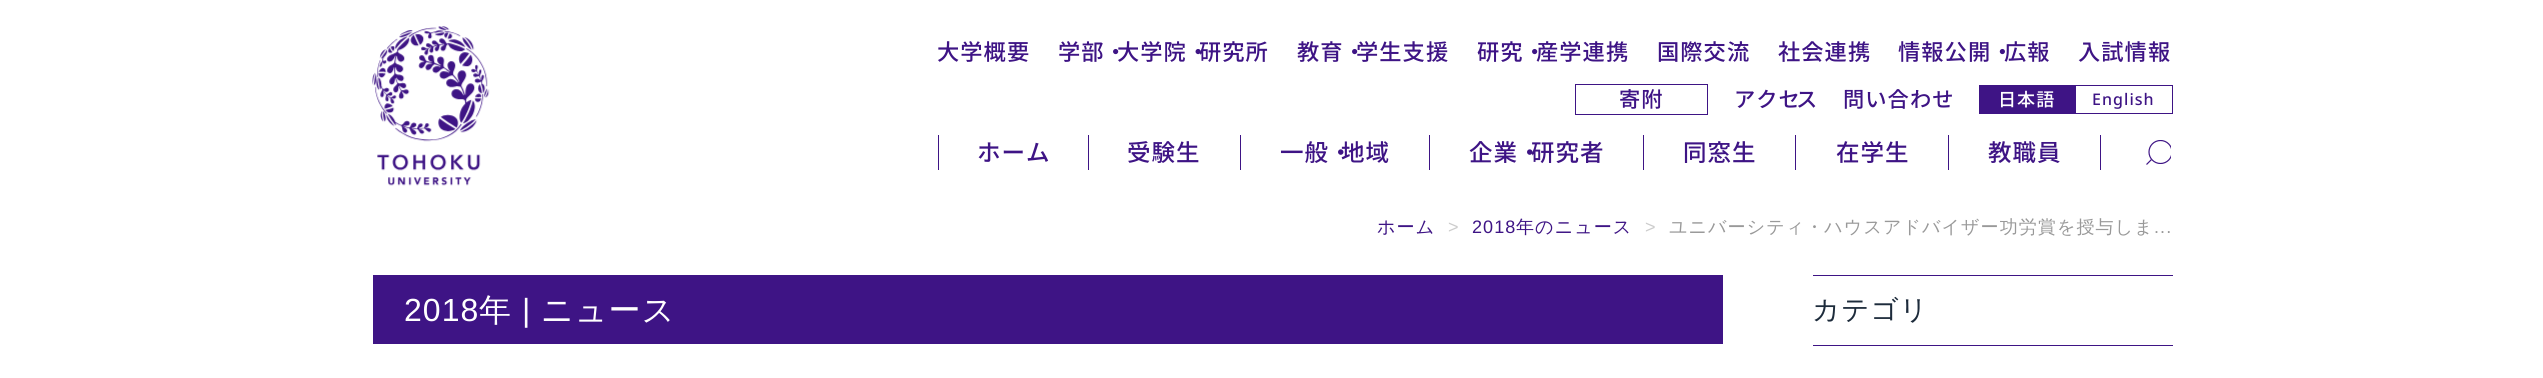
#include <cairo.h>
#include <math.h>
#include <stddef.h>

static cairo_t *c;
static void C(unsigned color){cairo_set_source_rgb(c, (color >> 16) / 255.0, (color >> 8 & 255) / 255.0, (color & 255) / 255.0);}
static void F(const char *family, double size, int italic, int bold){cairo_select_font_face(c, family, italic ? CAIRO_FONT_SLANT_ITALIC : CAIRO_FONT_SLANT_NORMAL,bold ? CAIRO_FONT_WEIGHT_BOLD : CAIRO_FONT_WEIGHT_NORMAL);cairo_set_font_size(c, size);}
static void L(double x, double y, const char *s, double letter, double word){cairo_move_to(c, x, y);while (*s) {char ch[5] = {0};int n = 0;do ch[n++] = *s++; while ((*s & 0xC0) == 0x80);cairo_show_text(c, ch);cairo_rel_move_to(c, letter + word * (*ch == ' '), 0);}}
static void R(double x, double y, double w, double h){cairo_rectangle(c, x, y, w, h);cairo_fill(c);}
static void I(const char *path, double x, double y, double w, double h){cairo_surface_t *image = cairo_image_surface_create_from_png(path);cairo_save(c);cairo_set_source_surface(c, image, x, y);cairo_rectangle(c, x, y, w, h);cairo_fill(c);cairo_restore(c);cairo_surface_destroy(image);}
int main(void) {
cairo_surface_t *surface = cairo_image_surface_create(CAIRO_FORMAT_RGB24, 2543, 378);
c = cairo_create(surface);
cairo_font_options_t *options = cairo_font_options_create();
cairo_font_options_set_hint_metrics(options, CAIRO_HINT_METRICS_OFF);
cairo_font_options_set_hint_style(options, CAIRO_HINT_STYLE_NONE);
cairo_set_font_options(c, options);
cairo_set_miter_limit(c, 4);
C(0xffffff);
cairo_paint(c);
I("1.png",372,26,118,160);
F("Noto Sans JP Medium",22.25,0,0);
C(0x3e1485);
L(937,60,"大学概要",1.05,0);
L(1058,60,"学部・",1.05,0);
L(1117,60,"大学院・",1.05,0);
L(1199,60,"研究所",1.05,0);
L(1297,60,"教育・",1.05,0);
L(1356,60,"学生支援",1.05,0);
L(1477,60,"研究・",1.05,0);
L(1536,60,"産学連携",1.05,0);
L(1657,60,"国際交流",1.05,0);
L(1778,60,"社会連携",1.05,0);
L(1898,60,"情報公開・",1.05,0);
L(2004,60,"広報",1.05,0);
L(2078,60,"入試情報",1.05,0);
cairo_rectangle(c,1575.5,84.5,132,30);
cairo_set_line_width(c,1);
cairo_stroke(c);
F("Noto Sans JP Medium",21.25,0,0);
L(1619,107,"寄附",1.05,0);
L(1734,107,"アクセ",1.05,0);
L(1796,107,"ス",1.05,0);
L(1843,107,"問い合わせ",1.05,0);
R(1979,85,96,29);
F("Noto Sans JP Medium",18.05,0,0);
C(0xffffff);
L(1998,106,"日本語",1.05,0);
cairo_rectangle(c,2075.5,85.5,97,28);
C(0x3e1485);
cairo_stroke(c);
F("Noto Sans Medium",16,0,0);
L(2092,105,"English",1.05,0);
R(938,135,1,35);
F("Noto Sans JP Medium",23.5,0,0);
L(977,161,"ホーム",1.05,0);
R(1088,135,1,35);
L(1127,161,"受験生",1.05,0);
R(1240,135,1,35);
L(1280,161,"一般・",1.05,0);
L(1341,161,"地域",1.05,0);
R(1429,135,1,35);
L(1469,161,"企業・",1.05,0);
L(1531,161,"研究者",1.05,0);
R(1643,135,1,35);
L(1683,161,"同窓生",1.05,0);
R(1795,135,1,35);
L(1836,161,"在学生",1.05,0);
R(2100,135,1,35);
R(1948,135,1,35);
L(1988,161,"教職員",1.05,0);
cairo_save(c);
cairo_rectangle(c,2146,140,25,24);
cairo_clip(c);
cairo_arc(c,2160.5,152,11.5,0,2 * M_PI);
cairo_set_line_width(c,1.2);
cairo_stroke(c);
cairo_restore(c);
cairo_new_path(c);
cairo_move_to(c,2151.5,159.5);
cairo_line_to(c,2146.5,164.5);
cairo_set_line_width(c,1.2);
cairo_stroke(c);
F("WenQuanYi Zen Hei Medium",18.05,0,0);
L(1377,233,"ホーム",1.05,0);
F("Liberation Sans",18.05,0,0);
C(0xcccccc);
L(1448,233,">",1.05,0);
C(0x3e1485);
L(1472,233,"2018",1.05,0);
F("WenQuanYi Zen Hei Medium",18.05,0,0);
L(1516,233,"年のニュース",1.05,0);
F("Liberation Sans",18.05,0,0);
C(0xcccccc);
L(1645,233,">",1.05,0);
F("WenQuanYi Zen Hei Medium",18.05,0,0);
C(0x999999);
L(1669,233,"ユニバーシティ・ハウスアドバイザー功労賞を授与しま",1.05,0);
F("Liberation Sans",18.05,0,0);
L(2154,233,"...",1.05,0);
C(0x3e1485);
R(373,275,1350,69);
F("Liberation Sans",32,0,0);
C(0xffffff);
L(404,321,"2018",1.05,0);
F("WenQuanYi Zen Hei Medium",32,0,0);
L(479,321,"年",1.05,0);
F("Liberation Sans",32,0,0);
L(522,321,"|",1.05,0);
F("WenQuanYi Zen Hei Medium",32,0,0);
L(541,321,"ニュース",1.05,0);
C(0x3e1485);
R(1813,275,360,1);
R(1813,345,360,1);
F("WenQuanYi Zen Hei Medium",27.5,0,0);
C(0x1d2b3b);
L(1812,319,"カテゴリ",1.05,0);
cairo_surface_write_to_png(surface, "o.png");
cairo_font_options_destroy(options);
cairo_destroy(c);
cairo_surface_destroy(surface);
return 0;
}
